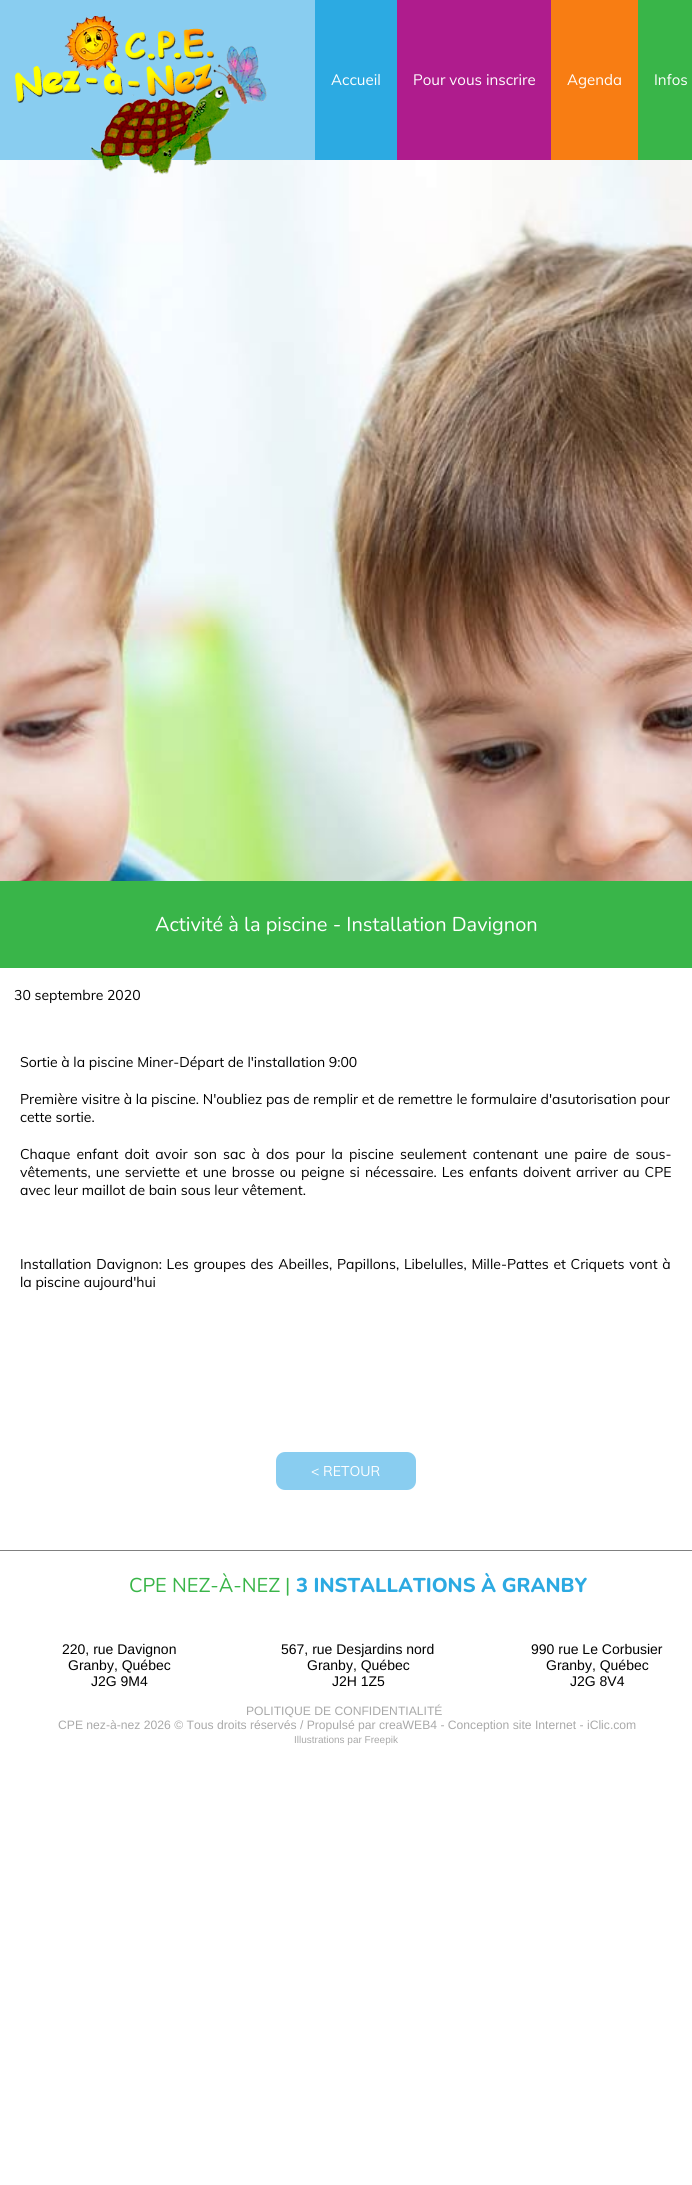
#include <cairo.h>
#include <math.h>
#include <stddef.h>

static cairo_t *c;
static void C(unsigned color){cairo_set_source_rgb(c, (color >> 16) / 255.0, (color >> 8 & 255) / 255.0, (color & 255) / 255.0);}
static void F(const char *family, double size, int italic, int bold){cairo_select_font_face(c, family, italic ? CAIRO_FONT_SLANT_ITALIC : CAIRO_FONT_SLANT_NORMAL,bold ? CAIRO_FONT_WEIGHT_BOLD : CAIRO_FONT_WEIGHT_NORMAL);cairo_set_font_size(c, size);}
static void T(double x, double y, const char *s){cairo_move_to(c, x, y);cairo_show_text(c, s);}
static void L(double x, double y, const char *s, double letter, double word){cairo_move_to(c, x, y);while (*s) {char ch[5] = {0};int n = 0;do ch[n++] = *s++; while ((*s & 0xC0) == 0x80);cairo_show_text(c, ch);cairo_rel_move_to(c, letter + word * (*ch == ' '), 0);}}
static void R(double x, double y, double w, double h){cairo_rectangle(c, x, y, w, h);cairo_fill(c);}
static void Q(double x, double y, double w, double h, double r){cairo_new_sub_path(c);cairo_arc(c, x + w - r, y + h - r, r, 0, M_PI / 2);cairo_arc(c, x + r, y + h - r, r, M_PI / 2, M_PI);cairo_arc(c, x + r, y + r, r, M_PI, 1.5 * M_PI);cairo_arc(c, x + w - r, y + r, r, 1.5 * M_PI, 2 * M_PI);cairo_close_path(c);}
static void I(const char *path, double x, double y, double w, double h){cairo_surface_t *image = cairo_image_surface_create_from_png(path);cairo_save(c);cairo_set_source_surface(c, image, x, y);cairo_rectangle(c, x, y, w, h);cairo_fill(c);cairo_restore(c);cairo_surface_destroy(image);}
int main(void) {
cairo_surface_t *surface = cairo_image_surface_create(CAIRO_FORMAT_RGB24, 692, 2185);
c = cairo_create(surface);
cairo_font_options_t *options = cairo_font_options_create();
cairo_font_options_set_hint_metrics(options, CAIRO_HINT_METRICS_OFF);
cairo_font_options_set_hint_style(options, CAIRO_HINT_STYLE_NONE);
cairo_set_font_options(c, options);
cairo_set_miter_limit(c, 4);
C(0xffffff);
cairo_paint(c);
C(0x89cdf0);
R(0,0,315,160);
I("2.png",0,160,692,721);
I("1.png",14,16,253,159);
C(0x2caae2);
R(315,0,82,160);
F("Muli",15,0,0);
C(0xffffff);
T(331,85,"Accueil");
C(0xaf1c8d);
R(397,0,154,160);
C(0xffffff);
T(413,85,"Pour vous inscrire");
C(0xf87d13);
R(551,0,87,160);
C(0xffffff);
T(567,85,"Agenda");
C(0x39b549);
R(638,0,54,160);
C(0xffffff);
T(654,85,"Infos");
C(0x808080);
R(0,1550,692,1);
C(0x39b549);
R(0,881,692,87);
F("Nunito",20,0,0);
C(0xffffff);
T(155,931,"Activité à la piscine - Installation Davignon");
F("Muli",14,0,0);
C(0x000000);
T(14,1000,"30 septembre 2020");
T(20,1067,"Sortie à la piscine Miner-Départ de l'installation 9:00");
T(20,1104,"Première visitre à la piscine. N'oubliez pas de remplir et de remettre le formulaire d'asutorisation pour");
T(20,1122,"cette sortie.");
L(20,1159,"Chaque enfant doit avoir son sac à dos pour la piscine seulement contenant une paire de sous-",0,2.5);
L(20,1177,"vêtements, une serviette et une brosse ou peigne si nécessaire. Les enfants doivent arriver au CPE",0,1.4);
T(20,1195,"avec leur maillot de bain sous leur vêtement.");
L(20,1269,"Installation Davignon: Les groupes des Abeilles, Papillons, Libelulles, Mille-Pattes et Criquets vont à",0,1);
T(20,1287,"la piscine aujourd'hui");
C(0x89cdf0);
Q(276,1452,140,38,9);
cairo_fill(c);
C(0xffffff);
T(311,1476,"< RETOUR");
F("Nunito",20,0,0);
C(0x39b549);
T(129,1592,"CPE NEZ-À-NEZ |");
F("Nunito ExtraBold",20,0,0);
C(0x2caae2);
T(296,1592,"3 INSTALLATIONS À GRANBY");
F("Liberation Sans",14,0,0);
C(0x000000);
T(62,1654,"220, rue Davignon");
T(68,1670,"Granby, Québec");
T(91,1686,"J2G 9M4");
T(281,1654,"567, rue Desjardins nord");
T(307,1670,"Granby, Québec");
T(332,1686,"J2H 1Z5");
T(531,1654,"990 rue Le Corbusier");
T(546,1670,"Granby, Québec");
T(570,1686,"J2G 8V4");
F("Liberation Sans",12.15,0,0);
C(0xa9a9a9);
T(246,1715,"POLITIQUE DE CONFIDENTIALITÉ");
T(58,1729,"CPE nez-à-nez 2026 © Tous droits réservés / Propulsé par creaWEB4 - Conception site Internet - iClic.com");
F("Liberation Sans",10,0,0);
T(294,1743,"Illustrations par Freepik");
cairo_surface_write_to_png(surface, "o.png");
cairo_font_options_destroy(options);
cairo_destroy(c);
cairo_surface_destroy(surface);
return 0;
}
